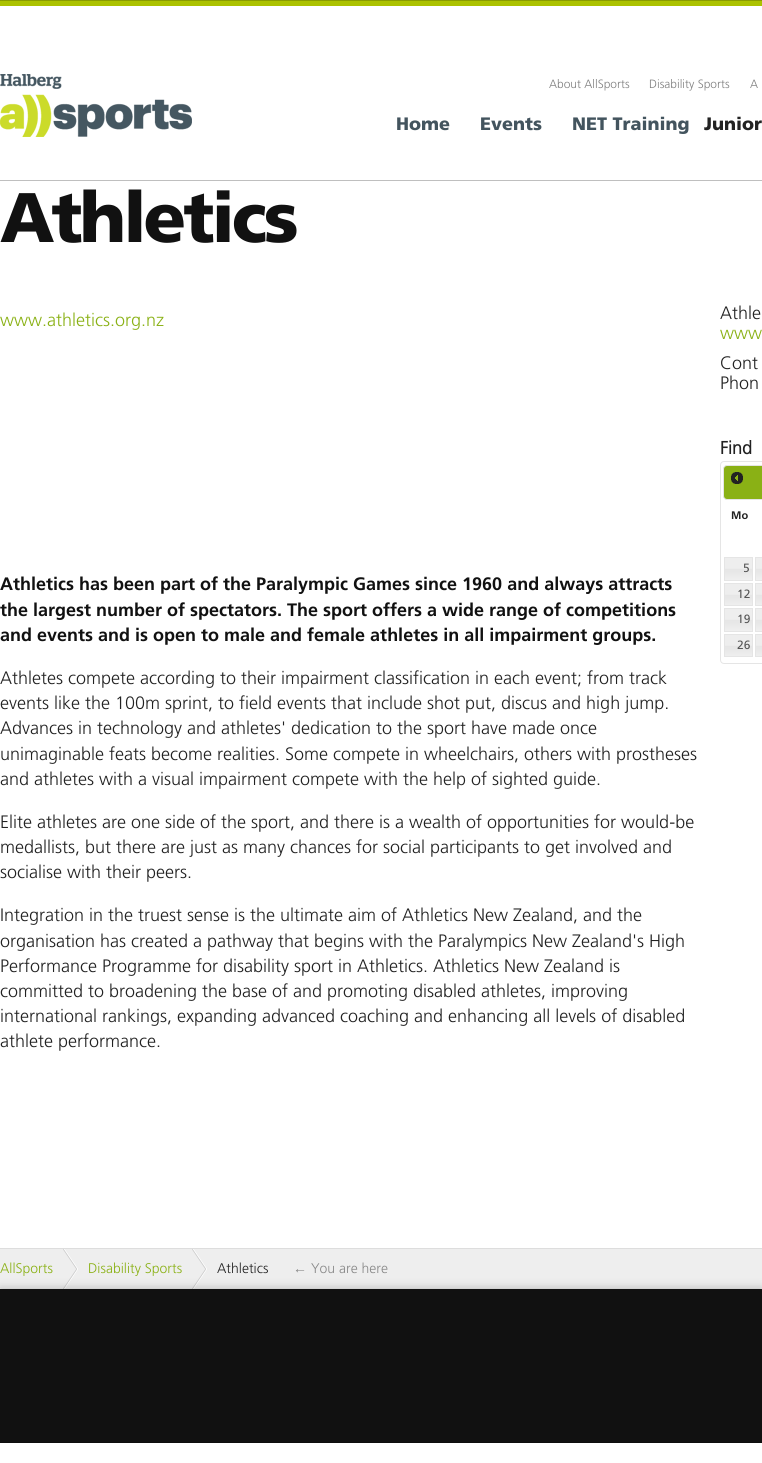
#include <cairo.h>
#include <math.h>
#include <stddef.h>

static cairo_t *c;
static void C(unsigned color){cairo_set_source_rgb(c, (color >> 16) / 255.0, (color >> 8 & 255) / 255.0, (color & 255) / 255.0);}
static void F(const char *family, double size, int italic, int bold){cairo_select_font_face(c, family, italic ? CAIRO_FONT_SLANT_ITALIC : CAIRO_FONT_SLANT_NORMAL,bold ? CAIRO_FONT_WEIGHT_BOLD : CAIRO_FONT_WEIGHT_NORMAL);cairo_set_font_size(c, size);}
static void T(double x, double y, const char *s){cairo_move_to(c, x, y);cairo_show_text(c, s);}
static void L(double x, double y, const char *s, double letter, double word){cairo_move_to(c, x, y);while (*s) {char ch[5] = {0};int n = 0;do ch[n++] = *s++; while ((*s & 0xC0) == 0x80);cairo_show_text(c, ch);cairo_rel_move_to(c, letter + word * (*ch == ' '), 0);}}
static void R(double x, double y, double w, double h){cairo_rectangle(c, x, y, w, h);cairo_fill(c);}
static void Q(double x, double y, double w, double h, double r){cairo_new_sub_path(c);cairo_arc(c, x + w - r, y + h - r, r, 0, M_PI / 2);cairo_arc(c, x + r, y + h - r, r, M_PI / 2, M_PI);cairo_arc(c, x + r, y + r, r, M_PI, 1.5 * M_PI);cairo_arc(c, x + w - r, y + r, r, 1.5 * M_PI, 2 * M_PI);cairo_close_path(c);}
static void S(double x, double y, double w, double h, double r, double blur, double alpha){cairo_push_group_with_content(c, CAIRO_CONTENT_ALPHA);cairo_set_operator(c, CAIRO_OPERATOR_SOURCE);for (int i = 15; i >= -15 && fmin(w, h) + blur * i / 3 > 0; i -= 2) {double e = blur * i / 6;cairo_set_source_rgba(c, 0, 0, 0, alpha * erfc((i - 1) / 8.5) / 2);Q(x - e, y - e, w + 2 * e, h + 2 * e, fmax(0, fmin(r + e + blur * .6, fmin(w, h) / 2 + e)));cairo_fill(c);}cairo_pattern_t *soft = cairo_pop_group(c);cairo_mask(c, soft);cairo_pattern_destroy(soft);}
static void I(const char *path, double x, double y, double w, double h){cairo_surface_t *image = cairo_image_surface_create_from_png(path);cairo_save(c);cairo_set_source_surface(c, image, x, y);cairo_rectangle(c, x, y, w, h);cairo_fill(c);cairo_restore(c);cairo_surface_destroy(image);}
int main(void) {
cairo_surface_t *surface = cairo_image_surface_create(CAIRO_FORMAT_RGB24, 762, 1463);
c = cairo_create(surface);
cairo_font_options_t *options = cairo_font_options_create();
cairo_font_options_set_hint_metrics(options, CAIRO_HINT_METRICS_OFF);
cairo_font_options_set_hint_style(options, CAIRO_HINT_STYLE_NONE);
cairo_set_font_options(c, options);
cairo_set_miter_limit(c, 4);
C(0xffffff);
cairo_paint(c);
C(0xacc200);
R(0,1,762,5);
C(0x8a9b00);
R(0,0,762,1);
C(0xbfbfbf);
R(0,180,762,1);
I("1.png",0,74,192,63);
F("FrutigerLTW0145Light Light",12,0,0);
C(0x7f7f7f);
T(549,88,"About AllSports");
T(649,88,"Disability Sports");
T(750,88,"A");
F("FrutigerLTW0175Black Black",18,0,0);
C(0x43545e);
T(396,130,"Home");
T(480,130,"Events");
T(572,130,"NET Training");
C(0x222222);
T(704,130,"Junior");
F("FrutigerLTW0175Black Black",70,0,0);
C(0x111111);
L(0,242,"Athletics",-3,0);
F("FrutigerLTW0145Light Light",18,0,0);
C(0x8ab115);
T(0,326,"www.athletics.org.nz");
F("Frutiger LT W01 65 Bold",18,0,1);
C(0x111111);
T(0,590,"Athletics has been part of the Paralympic Games since 1960 and always attracts");
T(0,616,"the largest number of spectators. The sport offers a wide range of competitions");
T(0,641,"and events and is open to male and female athletes in all impairment groups.");
F("FrutigerLTW0145Light Light",18,0,0);
C(0x222222);
T(0,684,"Athletes compete according to their impairment classification in each event; from track");
T(0,709,"events like the 100m sprint, to field events that include shot put, discus and high jump.");
T(0,734,"Advances in technology and athletes' dedication to the sport have made once");
T(0,760,"unimaginable feats become realities. Some compete in wheelchairs, others with prostheses");
T(0,785,"and athletes with a visual impairment compete with the help of sighted guide.");
T(0,828,"Elite athletes are one side of the sport, and there is a wealth of opportunities for would-be");
T(0,853,"medallists, but there are just as many chances for social participants to get involved and");
T(0,878,"socialise with their peers.");
T(0,921,"Integration in the truest sense is the ultimate aim of Athletics New Zealand, and the");
T(0,947,"organisation has created a pathway that begins with the Paralympics New Zealand's High");
T(0,972,"Performance Programme for disability sport in Athletics. Athletics New Zealand is");
T(0,997,"committed to broadening the base of and promoting disabled athletes, improving");
T(0,1022,"international rankings, expanding advanced coaching and enhancing all levels of disabled");
T(0,1047,"athlete performance.");
T(720,319,"Athle");
C(0x8ab115);
T(720,339,"www");
C(0x222222);
T(720,369,"Cont");
T(720,389,"Phon");
F("FrutigerLTW0145Light",18,0,1);
T(720,454,"Find");
Q(720.5,461.5,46,202,3.5);
C(0xe5e5e5);
cairo_set_line_width(c,1);
cairo_stroke(c);
C(0x8ab115);
Q(723.5,465.5,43,34,3.5);
cairo_fill_preserve(c);
C(0xe5e5e5);
cairo_stroke(c);
I("2.png",731,472,12,12);
F("Frutiger LT W01 65 Bold",11,0,1);
C(0x222222);
T(731,519,"Mo");
I("3.png",725,558,27,22);
cairo_rectangle(c,724.5,557.5,28,23);
C(0xe5e5e5);
cairo_stroke(c);
F("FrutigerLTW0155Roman",12,0,0);
C(0x555555);
T(743,572,"5");
I("4.png",756,558,6,22);
cairo_rectangle(c,755.5,557.5,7,23);
C(0xe5e5e5);
cairo_stroke(c);
I("5.png",725,584,27,21);
cairo_rectangle(c,724.5,583.5,28,22);
cairo_stroke(c);
C(0x555555);
T(737,598,"12");
I("6.png",756,584,6,21);
cairo_rectangle(c,755.5,583.5,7,22);
C(0xe5e5e5);
cairo_stroke(c);
I("3.png",725,609,27,22);
cairo_rectangle(c,724.5,608.5,28,23);
cairo_stroke(c);
C(0x555555);
T(737,623,"19");
I("4.png",756,609,6,22);
cairo_rectangle(c,755.5,608.5,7,23);
C(0xe5e5e5);
cairo_stroke(c);
I("5.png",725,635,27,21);
cairo_rectangle(c,724.5,634.5,28,22);
cairo_stroke(c);
C(0x555555);
T(737,649,"26");
I("6.png",756,635,6,21);
cairo_rectangle(c,755.5,634.5,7,22);
C(0xe5e5e5);
cairo_stroke(c);
C(0xeeeeee);
R(0,1249,762,40);
C(0xdddddd);
R(0,1248,762,1);
I("7.png",63,1249,15,40);
F("FrutigerLTW0145Light Light",14,0,0);
C(0x8ab115);
T(0,1273,"AllSports");
I("7.png",192,1249,15,40);
T(88,1273,"Disability Sports");
C(0x222222);
T(217,1273,"Athletics");
F("Liberation Sans",14,0,0);
C(0x888888);
T(293,1273,"←");
F("FrutigerLTW0145Light Light",14,0,0);
T(311,1273,"You are here");
C(0x000000);
S(0,1289,762,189,0,5,.25);
C(0xffffff);
R(0,1443,762,20);
C(0x111111);
R(0,1289,762,153);
C(0x0e0e0e);
R(0,1442,762,1);
cairo_surface_write_to_png(surface, "o.png");
cairo_font_options_destroy(options);
cairo_destroy(c);
cairo_surface_destroy(surface);
return 0;
}
